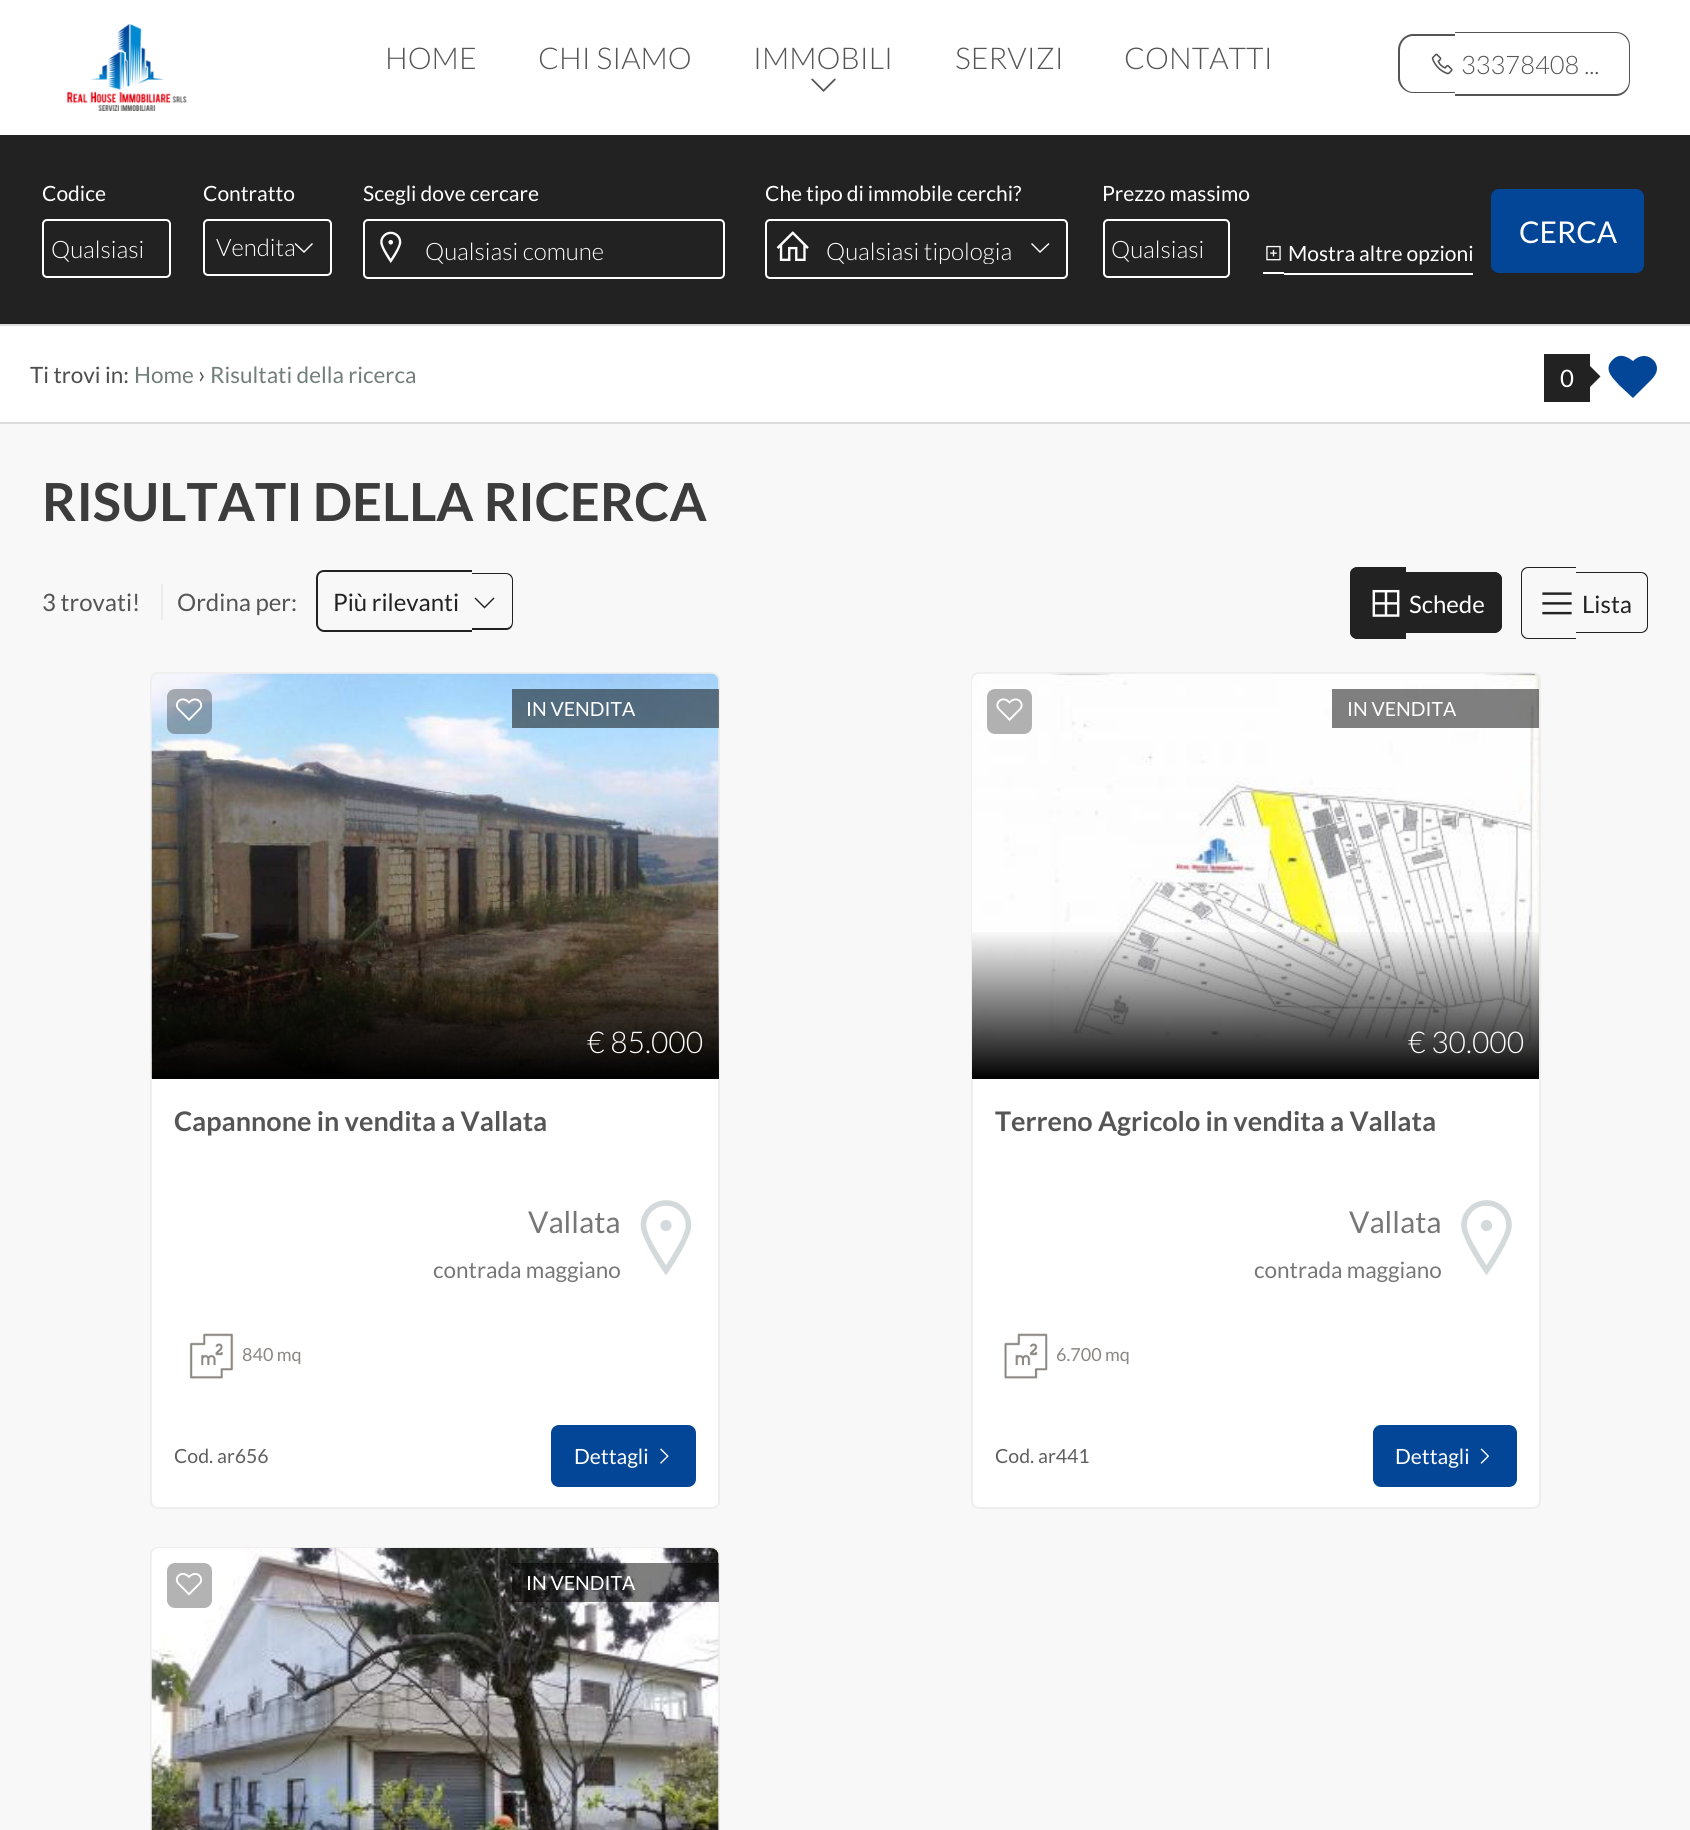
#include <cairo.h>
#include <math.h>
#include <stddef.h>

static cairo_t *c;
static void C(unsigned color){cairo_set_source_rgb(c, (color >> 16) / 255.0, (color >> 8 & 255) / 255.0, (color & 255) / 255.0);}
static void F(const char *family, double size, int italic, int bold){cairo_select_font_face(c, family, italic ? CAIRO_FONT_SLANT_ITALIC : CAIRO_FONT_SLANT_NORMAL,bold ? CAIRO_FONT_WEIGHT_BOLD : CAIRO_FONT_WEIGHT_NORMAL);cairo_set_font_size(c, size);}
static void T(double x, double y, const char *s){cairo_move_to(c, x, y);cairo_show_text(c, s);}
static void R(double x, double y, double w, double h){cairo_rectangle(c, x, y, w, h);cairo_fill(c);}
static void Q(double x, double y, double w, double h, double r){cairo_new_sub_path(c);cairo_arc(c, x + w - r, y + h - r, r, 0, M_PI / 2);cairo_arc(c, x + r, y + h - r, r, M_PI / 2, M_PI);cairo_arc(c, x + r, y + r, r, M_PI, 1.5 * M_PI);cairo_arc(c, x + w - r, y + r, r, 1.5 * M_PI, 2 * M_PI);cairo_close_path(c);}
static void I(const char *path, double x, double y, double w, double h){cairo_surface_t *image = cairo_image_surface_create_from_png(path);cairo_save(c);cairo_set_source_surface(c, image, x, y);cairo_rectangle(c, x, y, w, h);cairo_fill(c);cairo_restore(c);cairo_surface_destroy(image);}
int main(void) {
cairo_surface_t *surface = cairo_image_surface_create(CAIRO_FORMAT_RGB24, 1690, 1830);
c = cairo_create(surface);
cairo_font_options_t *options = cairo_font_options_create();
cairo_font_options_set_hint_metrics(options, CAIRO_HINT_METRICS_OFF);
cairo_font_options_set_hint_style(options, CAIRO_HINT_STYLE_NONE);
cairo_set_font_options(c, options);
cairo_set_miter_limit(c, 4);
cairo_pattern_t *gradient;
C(0xffffff);
cairo_paint(c);
I("1.png",67,24,120,87);
F("Lato Light",30,0,0);
C(0x555555);
T(385,69,"HOME");
T(538,69,"CHI SIAMO");
T(753,69,"IMMOBILI");
cairo_new_path(c);
cairo_move_to(c,812.5,78.5);
cairo_line_to(c,823.5,89.5);
cairo_line_to(c,834.5,78.5);
cairo_line_to(c,836,79.5);
cairo_line_to(c,823.5,92);
cairo_line_to(c,811,79.5);
cairo_close_path(c);
cairo_fill(c);
T(955,69,"SERVIZI");
T(1124,69,"CONTATTI");
cairo_set_fill_rule(c,CAIRO_FILL_RULE_EVEN_ODD);
cairo_new_path(c);
cairo_move_to(c,1413,34);
cairo_line_to(c,1455,34);
cairo_line_to(c,1455,93);
cairo_line_to(c,1413,93);
cairo_curve_to(c,1405,93,1398,86,1398,78);
cairo_line_to(c,1398,50);
cairo_curve_to(c,1398,41,1405,34,1413,34);
cairo_close_path(c);
cairo_move_to(c,1413,36);
cairo_line_to(c,1455,36);
cairo_line_to(c,1455,92);
cairo_line_to(c,1413,92);
cairo_curve_to(c,1406,92,1400,85,1400,78);
cairo_line_to(c,1400,50);
cairo_curve_to(c,1400,42,1406,36,1413,36);
cairo_close_path(c);
cairo_fill(c);
cairo_new_path(c);
cairo_move_to(c,1455,32);
cairo_line_to(c,1616,32);
cairo_curve_to(c,1624,32,1630,38,1630,46);
cairo_line_to(c,1630,81);
cairo_curve_to(c,1630,89,1624,96,1616,96);
cairo_line_to(c,1455,96);
cairo_close_path(c);
cairo_move_to(c,1455,33);
cairo_line_to(c,1616,33);
cairo_curve_to(c,1623,33,1629,39,1629,46);
cairo_line_to(c,1629,81);
cairo_curve_to(c,1629,88,1623,94,1616,94);
cairo_line_to(c,1455,94);
cairo_close_path(c);
cairo_fill(c);
I("2.png",1431,53,22,22);
F("Lato Light",25.5,0,0);
T(1461,74,"33378408 ...");
C(0xf8f8f8);
R(0,424,1690,1406);
C(0x222222);
R(0,135,1690,189);
F("Lato",21,0,0);
C(0xffffff);
T(42,201,"Codice");
Q(43,220,127,57,4);
cairo_stroke(c);
F("Lato Light",24,0,0);
T(51,258,"Qualsiasi");
F("Lato",21,0,0);
T(203,201,"Contratto");
Q(204,220,127,55,4);
cairo_stroke(c);
cairo_set_fill_rule(c,CAIRO_FILL_RULE_WINDING);
cairo_new_path(c);
cairo_move_to(c,295.5,243);
cairo_line_to(c,304,251);
cairo_line_to(c,312,243);
cairo_line_to(c,313,244);
cairo_line_to(c,304,253);
cairo_line_to(c,294.5,244);
cairo_close_path(c);
cairo_fill(c);
F("Lato Light",24,0,0);
T(216,256,"Vendita");
F("Lato",21,0,0);
T(363,201,"Scegli dove cercare");
Q(364,220,360,58,4);
cairo_stroke(c);
I("3.png",380,231,22,32);
F("Lato Light",24,0,0);
T(425,260,"Qualsiasi comune");
F("Lato",21,0,0);
T(765,201,"Che tipo di immobile cerchi?");
Q(766,220,301,58,4);
cairo_stroke(c);
I("4.png",776,231,33,30);
cairo_save(c);
cairo_rectangle(c,827,236,195,28);
cairo_clip(c);
F("Lato Light",24,0,0);
T(826,260,"Qualsiasi tipologia");
cairo_restore(c);
cairo_new_path(c);
cairo_move_to(c,1032,243);
cairo_line_to(c,1040,251);
cairo_line_to(c,1048.5,243);
cairo_line_to(c,1049.5,244);
cairo_line_to(c,1040,253);
cairo_line_to(c,1031,244);
cairo_close_path(c);
cairo_fill(c);
T(1102,201,"Prezzo massimo");
Q(1104,220,125,57,4);
cairo_stroke(c);
F("Lato Light",24,0,0);
T(1111,258,"Qualsiasi");
C(0x034697);
Q(1491,189,153,84,8);
cairo_fill(c);
F("Lato",30,0,0);
C(0xffffff);
T(1519,243,"CERCA");
R(1263,272,21,2);
R(1284,273,189,2);
I("5.png",1266,245,15,16);
F("Lato",21,0,0);
T(1288,261,"Mostra altre opzioni");
C(0xdddddd);
R(0,324,1690,2);
R(0,422,1690,2);
F("Lato",22.5,0,0);
C(0x4d4d4d);
T(30,383,"Ti trovi in:");
C(0x727e7a);
T(134,383,"Home");
F("Lato",24,0,0);
C(0x555555);
T(198,383,"›");
F("Lato",22.5,0,0);
C(0x727e7a);
T(210,383,"Risultati della ricerca");
C(0x222222);
R(1544,354,46,48);
F("Lato",24,0,0);
C(0xffffff);
T(1560,387,"0");
C(0x222222);
cairo_new_path(c);
cairo_move_to(c,1588.5,388.5);
cairo_line_to(c,1588.5,364.5);
cairo_line_to(c,1600.5,376.5);
cairo_close_path(c);
cairo_fill(c);
C(0x034697);
cairo_new_path(c);
cairo_move_to(c,1644,356);
cairo_curve_to(c,1648,356,1652,358,1655,362);
cairo_curve_to(c,1661,372,1652,379,1646,385);
cairo_line_to(c,1633,398);
cairo_line_to(c,1619,385);
cairo_curve_to(c,1614,379,1605,372,1610,363);
cairo_curve_to(c,1612,360,1615,357,1619,356);
cairo_curve_to(c,1624,355,1629,358,1633,361);
cairo_curve_to(c,1636,358,1640,356,1644,356);
cairo_close_path(c);
cairo_fill(c);
F("Lato",52.5,0,1);
C(0x3c3c3c);
T(42,521,"RISULTATI DELLA RICERCA");
F("Lato",24,0,0);
C(0x555555);
T(42,611,"3 trovati!");
C(0xebebeb);
R(161,584,2,36);
C(0x555555);
T(177,611,"Ordina per:");
C(0x222222);
cairo_set_fill_rule(c,CAIRO_FILL_RULE_EVEN_ODD);
cairo_new_path(c);
cairo_move_to(c,324,570);
cairo_line_to(c,472,570);
cairo_line_to(c,472,632);
cairo_line_to(c,324,632);
cairo_curve_to(c,320,632,316,628,316,624);
cairo_line_to(c,316,578);
cairo_curve_to(c,316,573,320,570,324,570);
cairo_close_path(c);
cairo_move_to(c,324,572);
cairo_line_to(c,472,572);
cairo_line_to(c,472,630);
cairo_line_to(c,324,630);
cairo_curve_to(c,321,630,318,627,318,624);
cairo_line_to(c,318,578);
cairo_curve_to(c,318,574,321,572,324,572);
cairo_close_path(c);
cairo_fill(c);
cairo_new_path(c);
cairo_move_to(c,472,573);
cairo_line_to(c,506,573);
cairo_curve_to(c,510,573,513,576,513,580);
cairo_line_to(c,513,622);
cairo_curve_to(c,513,627,510,630,506,630);
cairo_line_to(c,472,630);
cairo_close_path(c);
cairo_move_to(c,472,574);
cairo_line_to(c,506,574);
cairo_curve_to(c,509,574,512,577,512,580);
cairo_line_to(c,512,622);
cairo_curve_to(c,512,626,509,628,506,628);
cairo_line_to(c,472,628);
cairo_close_path(c);
cairo_fill(c);
T(333,611,"Più rilevanti");
cairo_set_fill_rule(c,CAIRO_FILL_RULE_WINDING);
cairo_new_path(c);
cairo_move_to(c,475.5,597.5);
cairo_line_to(c,484.5,606.5);
cairo_line_to(c,493.5,597.5);
cairo_line_to(c,494.5,598.5);
cairo_line_to(c,484.5,608.5);
cairo_line_to(c,474.5,598.5);
cairo_close_path(c);
cairo_fill(c);
cairo_new_path(c);
cairo_move_to(c,1358,567);
cairo_line_to(c,1406,567);
cairo_line_to(c,1406,639);
cairo_line_to(c,1358,639);
cairo_curve_to(c,1353.5,639,1350,635.5,1350,631);
cairo_line_to(c,1350,575);
cairo_curve_to(c,1350,570.5,1353.5,567,1358,567);
cairo_close_path(c);
cairo_fill(c);
cairo_set_fill_rule(c,CAIRO_FILL_RULE_EVEN_ODD);
cairo_new_path(c);
cairo_move_to(c,1358,567);
cairo_line_to(c,1406,567);
cairo_line_to(c,1406,639);
cairo_line_to(c,1358,639);
cairo_curve_to(c,1353,639,1350,636,1350,632);
cairo_line_to(c,1350,574);
cairo_curve_to(c,1350,570,1353,567,1358,567);
cairo_close_path(c);
cairo_move_to(c,1358,568);
cairo_line_to(c,1406,568);
cairo_line_to(c,1406,638);
cairo_line_to(c,1358,638);
cairo_curve_to(c,1354,638,1352,635,1352,632);
cairo_line_to(c,1352,574);
cairo_curve_to(c,1352,571,1354,568,1358,568);
cairo_close_path(c);
cairo_fill(c);
cairo_new_path(c);
cairo_move_to(c,1406,572);
cairo_line_to(c,1494,572);
cairo_curve_to(c,1498.5,572,1502,575.5,1502,580);
cairo_line_to(c,1502,625);
cairo_curve_to(c,1502,629.5,1498.5,633,1494,633);
cairo_line_to(c,1406,633);
cairo_close_path(c);
cairo_fill(c);
cairo_new_path(c);
cairo_move_to(c,1406,572);
cairo_line_to(c,1494,572);
cairo_curve_to(c,1498,572,1502,575,1502,579);
cairo_line_to(c,1502,626);
cairo_curve_to(c,1502,630,1498,633,1494,633);
cairo_line_to(c,1406,633);
cairo_close_path(c);
cairo_move_to(c,1406,573);
cairo_line_to(c,1494,573);
cairo_curve_to(c,1497,573,1500,576,1500,579);
cairo_line_to(c,1500,626);
cairo_curve_to(c,1500,629,1497,632,1494,632);
cairo_line_to(c,1406,632);
cairo_close_path(c);
cairo_fill(c);
I("6.png",1372,589,28,28);
C(0xffffff);
T(1409,613,"Schede");
C(0x222222);
cairo_new_path(c);
cairo_move_to(c,1528,567);
cairo_line_to(c,1576,567);
cairo_line_to(c,1576,639);
cairo_line_to(c,1528,639);
cairo_curve_to(c,1524,639,1521,636,1521,632);
cairo_line_to(c,1521,574);
cairo_curve_to(c,1521,570,1524,567,1528,567);
cairo_close_path(c);
cairo_move_to(c,1528,568);
cairo_line_to(c,1576,568);
cairo_line_to(c,1576,638);
cairo_line_to(c,1528,638);
cairo_curve_to(c,1525,638,1522,635,1522,632);
cairo_line_to(c,1522,574);
cairo_curve_to(c,1522,571,1525,568,1528,568);
cairo_close_path(c);
cairo_fill(c);
cairo_new_path(c);
cairo_move_to(c,1576,572);
cairo_line_to(c,1641,572);
cairo_curve_to(c,1645,572,1648,575,1648,579);
cairo_line_to(c,1648,626);
cairo_curve_to(c,1648,630,1645,633,1641,633);
cairo_line_to(c,1576,633);
cairo_close_path(c);
cairo_move_to(c,1576,573);
cairo_line_to(c,1641,573);
cairo_curve_to(c,1644,573,1647,576,1647,579);
cairo_line_to(c,1647,626);
cairo_curve_to(c,1647,629,1644,632,1641,632);
cairo_line_to(c,1576,632);
cairo_close_path(c);
cairo_fill(c);
I("7.png",1542,592,30,23);
T(1582,613,"Lista");
C(0xffffff);
Q(151,673,568,835,7);
cairo_fill_preserve(c);
C(0xeeeeee);
cairo_stroke(c);
cairo_new_path(c);
cairo_move_to(c,160,674);
cairo_line_to(c,711,674);
cairo_curve_to(c,715.5,674,719,677.5,719,682);
cairo_line_to(c,719,1079);
cairo_line_to(c,152,1079);
cairo_line_to(c,152,682);
cairo_curve_to(c,152,677.5,155.5,674,160,674);
cairo_close_path(c);
cairo_fill(c);
I("9.png",151,673,568,406);
cairo_set_source_rgba(c,0,0,0,0.3);
Q(167,689,45,45,8);
cairo_fill(c);
I("8.png",175,698,28,23);
cairo_set_source_rgba(c,0,0,0,0.5);
R(512,689,207,39);
F("Lato",19.5,0,0);
C(0xffffff);
T(526,716,"IN VENDITA");
gradient = cairo_pattern_create_linear(435,929,435,1079);
cairo_pattern_add_color_stop_rgba(gradient,0,0,0,0,0);
cairo_pattern_add_color_stop_rgba(gradient,1,0,0,0,1);
cairo_set_source(c,gradient);
cairo_pattern_destroy(gradient);
R(152,932,567,147);
F("Lato Light",30,0,0);
C(0xffffff);
T(587,1053,"€ 85.000");
F("Lato",27,0,1);
C(0x555555);
T(174,1131,"Capannone in vendita a Vallata");
F("Lato",30,0,0);
C(0x777777);
T(528,1233,"Vallata");
I("10.png",640,1200,52,75);
F("Lato",22.5,0,0);
T(433,1278,"contrada maggiano");
I("11.png",189,1333,45,46);
F("Lato",18,0,0);
C(0x8b8782);
T(242,1361,"840 mq");
F("Lato",19.5,0,0);
C(0x5f5f5f);
T(174,1463,"Cod. ar656");
C(0x034697);
Q(551,1425,145,62,8);
cairo_fill(c);
F("Lato",21,0,0);
C(0xffffff);
T(574,1464,"Dettagli");
I("12.png",660,1448,9,16);
Q(972,673,568,835,7);
cairo_fill_preserve(c);
C(0xeeeeee);
cairo_stroke(c);
cairo_new_path(c);
cairo_move_to(c,980,674);
cairo_line_to(c,1531,674);
cairo_curve_to(c,1535.5,674,1539,677.5,1539,682);
cairo_line_to(c,1539,1079);
cairo_line_to(c,972,1079);
cairo_line_to(c,972,682);
cairo_curve_to(c,972,677.5,975.5,674,980,674);
cairo_close_path(c);
cairo_fill(c);
I("14.png",972,673,567,405);
C(0xb1b1b1);
Q(987,689,45,45,8);
cairo_fill(c);
I("13.png",996,698,27,23);
cairo_set_source_rgba(c,0,0,0,0.5);
R(1332,689,207,39);
F("Lato",19.5,0,0);
C(0xffffff);
T(1347,716,"IN VENDITA");
gradient = cairo_pattern_create_linear(1256,929,1256,1079);
cairo_pattern_add_color_stop_rgba(gradient,0,0,0,0,0);
cairo_pattern_add_color_stop_rgba(gradient,1,0,0,0,1);
cairo_set_source(c,gradient);
cairo_pattern_destroy(gradient);
R(972,932,567,147);
F("Lato Light",30,0,0);
C(0xffffff);
T(1408,1053,"€ 30.000");
F("Lato",27,0,1);
C(0x555555);
T(995,1131,"Terreno Agricolo in vendita a Vallata");
F("Lato",30,0,0);
C(0x777777);
T(1349,1233,"Vallata");
I("15.png",1461,1200,51,76);
F("Lato",22.5,0,0);
T(1254,1278,"contrada maggiano");
I("16.png",1004,1333,44,46);
F("Lato",18,0,0);
C(0x8b8782);
T(1056,1361,"6.700 mq");
F("Lato",19.5,0,0);
C(0x5f5f5f);
T(995,1463,"Cod. ar441");
C(0x034697);
Q(1373,1425,144,62,8);
cairo_fill(c);
F("Lato",21,0,0);
C(0xffffff);
T(1395,1464,"Dettagli");
I("17.png",1480,1448,10,16);
Q(151,1548,568,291,7);
C(0xeeeeee);
cairo_stroke(c);
cairo_new_path(c);
cairo_move_to(c,160,1548);
cairo_line_to(c,711,1548);
cairo_curve_to(c,715.5,1548,719,1551.5,719,1556);
cairo_line_to(c,719,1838);
cairo_line_to(c,152,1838);
cairo_line_to(c,152,1556);
cairo_curve_to(c,152,1551.5,155.5,1548,160,1548);
cairo_close_path(c);
cairo_fill(c);
I("19.png",151,1548,568,282);
C(0xb3b3b3);
Q(167,1563,45,45,8);
cairo_fill(c);
I("18.png",175,1573,28,23);
cairo_set_source_rgba(c,0,0,0,0.5);
R(512,1563,207,39);
F("Lato",19.5,0,0);
C(0xffffff);
T(526,1590,"IN VENDITA");
gradient = cairo_pattern_create_linear(435,1803,435,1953);
cairo_pattern_add_color_stop_rgba(gradient,0,0,0,0,0);
cairo_pattern_add_color_stop_rgba(gradient,1,0,0,0,1);
cairo_set_source(c,gradient);
cairo_pattern_destroy(gradient);
R(152,1806,567,24);
cairo_surface_write_to_png(surface, "o.png");
cairo_font_options_destroy(options);
cairo_destroy(c);
cairo_surface_destroy(surface);
return 0;
}
